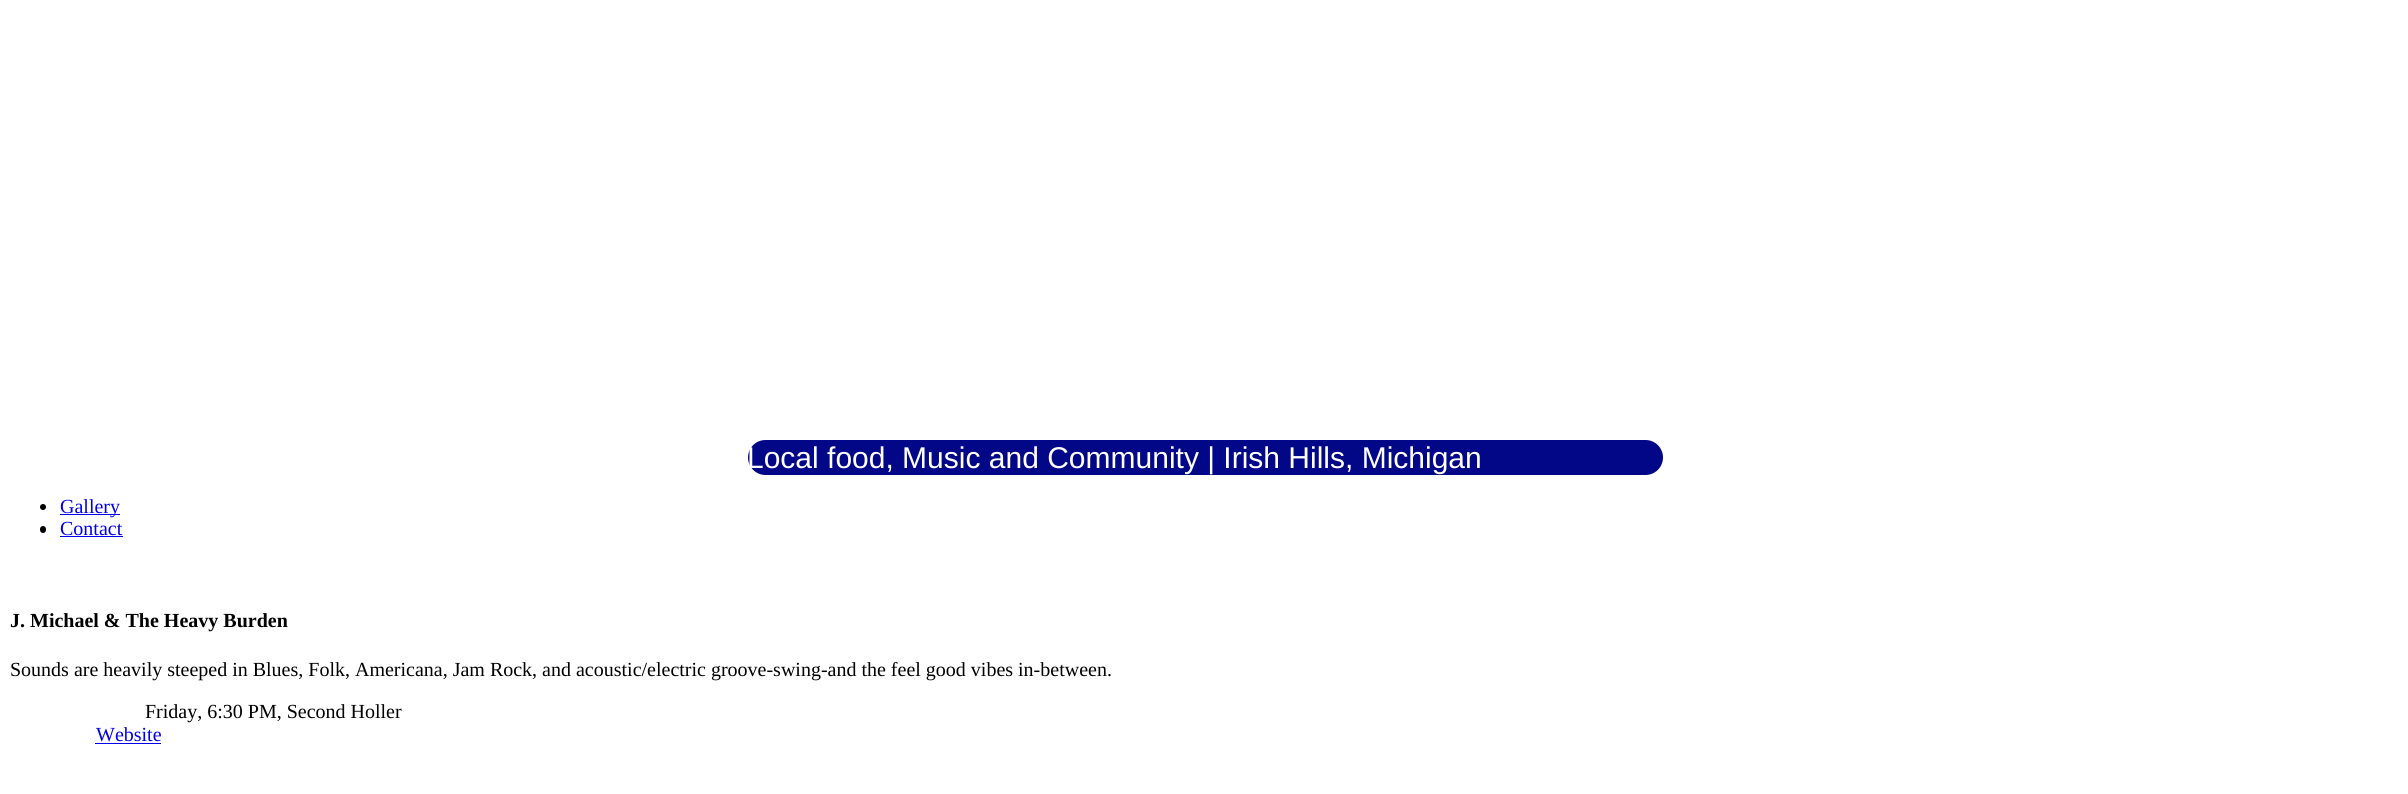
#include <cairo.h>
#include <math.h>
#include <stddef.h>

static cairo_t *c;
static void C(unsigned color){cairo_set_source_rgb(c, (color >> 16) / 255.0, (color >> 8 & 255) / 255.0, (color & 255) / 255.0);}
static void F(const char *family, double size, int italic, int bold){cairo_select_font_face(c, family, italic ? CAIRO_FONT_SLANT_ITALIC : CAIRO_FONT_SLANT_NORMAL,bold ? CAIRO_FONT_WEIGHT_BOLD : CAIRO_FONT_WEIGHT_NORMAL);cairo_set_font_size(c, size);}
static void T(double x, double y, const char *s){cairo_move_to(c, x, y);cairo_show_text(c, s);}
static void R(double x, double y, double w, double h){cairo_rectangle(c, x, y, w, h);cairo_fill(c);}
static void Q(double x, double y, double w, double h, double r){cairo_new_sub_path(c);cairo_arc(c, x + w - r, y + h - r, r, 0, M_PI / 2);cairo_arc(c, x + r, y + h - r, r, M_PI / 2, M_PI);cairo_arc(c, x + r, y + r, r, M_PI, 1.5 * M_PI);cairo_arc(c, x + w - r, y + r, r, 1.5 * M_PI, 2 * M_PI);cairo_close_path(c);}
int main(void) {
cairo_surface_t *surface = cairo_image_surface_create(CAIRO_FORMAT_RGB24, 2408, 794);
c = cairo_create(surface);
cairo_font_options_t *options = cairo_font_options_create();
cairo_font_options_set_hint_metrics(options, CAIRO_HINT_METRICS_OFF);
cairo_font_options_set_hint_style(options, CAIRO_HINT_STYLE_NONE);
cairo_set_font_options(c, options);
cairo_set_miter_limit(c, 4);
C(0xffffff);
cairo_paint(c);
C(0x020787);
Q(748,440,915,35,17.5);
cairo_fill(c);
F("Liberation Sans",30,0,0);
C(0xffffff);
T(747,468,"Local food, Music and Community | Irish Hills, Michigan");
C(0x000000);
cairo_new_path(c);
cairo_arc(c,43,507,3,0,2 * M_PI);
cairo_fill(c);
C(0x0000ee);
R(60,514,60,1);
F("Liberation Serif",20,0,0);
T(60,513,"Gallery");
C(0x000000);
Q(40,526,6,7,3);
cairo_fill(c);
C(0x0000ee);
T(60,535,"Contact");
R(60,536,63,1);
F("Liberation Serif",20,0,1);
C(0x000000);
T(10,627,"J. Michael & The Heavy Burden");
F("Liberation Serif",20,0,0);
T(10,676,"Sounds are heavily steeped in Blues, Folk, Americana, Jam Rock, and acoustic/electric groove-swing-and the feel good vibes in-between.");
T(145,718,"Friday, 6:30 PM, Second Holler");
C(0x0000ee);
T(96,741,"Website");
R(95,743,66,1);
cairo_surface_write_to_png(surface, "o.png");
cairo_font_options_destroy(options);
cairo_destroy(c);
cairo_surface_destroy(surface);
return 0;
}
